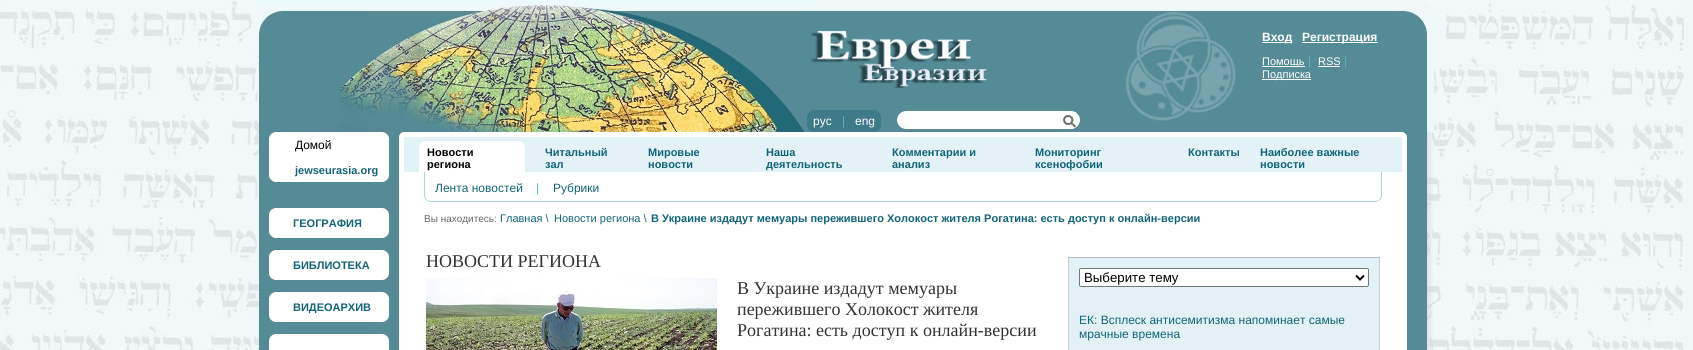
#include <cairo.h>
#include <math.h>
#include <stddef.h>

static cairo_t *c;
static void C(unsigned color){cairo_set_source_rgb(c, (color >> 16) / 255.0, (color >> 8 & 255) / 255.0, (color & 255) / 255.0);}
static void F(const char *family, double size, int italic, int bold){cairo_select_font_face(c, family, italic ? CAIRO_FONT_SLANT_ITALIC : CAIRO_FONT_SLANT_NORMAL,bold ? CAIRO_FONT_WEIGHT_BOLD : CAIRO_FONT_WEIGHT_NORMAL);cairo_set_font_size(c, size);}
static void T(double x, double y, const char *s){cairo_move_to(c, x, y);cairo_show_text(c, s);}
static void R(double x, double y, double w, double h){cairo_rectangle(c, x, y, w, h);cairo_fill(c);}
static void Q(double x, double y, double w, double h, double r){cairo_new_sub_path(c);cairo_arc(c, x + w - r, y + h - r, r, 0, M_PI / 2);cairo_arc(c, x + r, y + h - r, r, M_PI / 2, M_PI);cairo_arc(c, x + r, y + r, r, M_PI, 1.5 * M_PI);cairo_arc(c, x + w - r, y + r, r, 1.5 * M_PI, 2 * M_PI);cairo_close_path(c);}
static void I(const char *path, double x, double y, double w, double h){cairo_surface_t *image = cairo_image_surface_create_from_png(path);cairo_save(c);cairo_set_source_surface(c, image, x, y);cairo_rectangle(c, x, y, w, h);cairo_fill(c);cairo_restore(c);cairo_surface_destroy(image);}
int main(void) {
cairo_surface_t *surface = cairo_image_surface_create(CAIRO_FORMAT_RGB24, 1693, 350);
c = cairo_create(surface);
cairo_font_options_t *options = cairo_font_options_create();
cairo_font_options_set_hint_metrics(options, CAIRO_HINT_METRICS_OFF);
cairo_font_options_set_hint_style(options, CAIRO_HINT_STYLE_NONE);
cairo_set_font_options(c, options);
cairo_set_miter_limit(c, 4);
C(0xeff7f9);
cairo_paint(c);
I("1.png",0,0,1685,350);
I("2.png",816,0,618,132);
C(0xffffff);
R(1262,42,30,1);
F("Liberation Sans",12,0,1);
T(1262,41,"Вход");
R(1302,42,76,1);
T(1302,41,"Регистрация");
R(1262,66,43,1);
F("Liberation Sans",11,0,0);
T(1262,65,"Помощь");
F("Liberation Sans",12,0,0);
C(0x5cb5b9);
T(1308,65,"|");
F("Liberation Sans",11,0,0);
C(0xffffff);
T(1318,65,"RSS");
R(1318,66,22,1);
F("Liberation Sans",12,0,0);
C(0x5cb5b9);
T(1344,65,"|");
C(0xffffff);
R(1262,79,49,1);
F("Liberation Sans",11,0,0);
T(1262,78,"Подписка");
I("3.png",259,0,557,132);
I("4.png",810,30,177,58);
I("5.png",807,110,6,22);
C(0x3f7a8a);
R(813,110,62,22);
F("Liberation Sans",12,0,0);
C(0xffffff);
T(813,125,"рус");
C(0x5cb5b9);
T(842,125,"|");
C(0xffffff);
T(855,125,"eng");
I("6.png",875,110,6,22);
I("7.png",896,110,185,20);
R(906,126,146,3);
I("8.png",1063,115,13,13);
C(0x558b97);
R(259,132,140,218);
I("9.png",269,132,6,6);
C(0xffffff);
R(275,132,108,6);
I("10.png",383,132,6,6);
R(269,138,120,38);
C(0x000000);
T(295,149,"Домой");
C(0xffffff);
R(275,176,108,6);
F("Liberation Sans",11,0,1);
C(0x126479);
T(295,174,"jewseurasia.org");
I("11.png",269,176,6,6);
I("12.png",383,176,6,6);
C(0xffffff);
R(269,208,120,30);
I("9.png",269,208,6,6);
I("10.png",383,208,6,6);
I("11.png",269,232,6,6);
I("12.png",383,232,6,6);
C(0x126479);
T(293,227,"ГЕОГРАФИЯ");
C(0xffffff);
R(269,250,120,30);
I("9.png",269,250,6,6);
I("10.png",383,250,6,6);
I("11.png",269,274,6,6);
I("12.png",383,274,6,6);
C(0x126479);
T(293,269,"БИБЛИОТЕКА");
C(0xffffff);
R(269,292,120,30);
I("9.png",269,292,6,6);
I("10.png",383,292,6,6);
I("11.png",269,316,6,6);
I("12.png",383,316,6,6);
C(0x126479);
T(293,311,"ВИДЕОАРХИВ");
C(0xffffff);
R(269,334,120,16);
I("9.png",269,334,6,6);
I("10.png",383,334,6,6);
C(0x558b97);
R(1407,132,20,218);
C(0xffffff);
R(399,132,1008,218);
I("13.png",399,132,5,5);
I("14.png",1402,132,5,5);
C(0xe3f2f6);
R(404,137,998,35);
C(0xffffff);
R(419,141,106,31);
I("15.png",419,141,5,5);
I("16.png",520,141,5,5);
C(0x000000);
T(427,156,"Новости");
T(427,168,"региона");
C(0x126479);
T(545,156,"Читальный");
T(545,168,"зал");
T(648,156,"Мировые");
T(648,168,"новости");
T(766,156,"Наша");
T(766,168,"деятельность");
T(892,156,"Комментарии и");
T(892,168,"анализ");
T(1035,156,"Мониторинг");
T(1035,168,"ксенофобии");
T(1188,156,"Контакты");
T(1260,156,"Наиболее важные");
T(1260,168,"новости");
C(0xaed6d6);
R(1381,172,1,24);
R(424,172,1,24);
F("Liberation Sans",12,0,0);
C(0x126479);
T(435,192,"Лента новостей");
C(0x5cb5b9);
T(536,192,"|");
C(0x126479);
T(553,192,"Рубрики");
I("17.png",424,196,6,6);
C(0xaed6d6);
R(430,201,946,1);
I("18.png",1376,196,6,6);
F("Liberation Sans",10,0,0);
C(0x676568);
T(424,222,"Вы находитесь:");
F("Liberation Sans",11,0,0);
C(0x126479);
T(500,222,"Главная \\");
T(554,222,"Новости региона \\");
F("Liberation Sans",11,0,1);
T(651,222,"В Украине издадут мемуары пережившего Холокост жителя Рогатина: есть доступ к онлайн-версии");
F("Liberation Serif",18,0,0);
C(0x333333);
T(426,267,"НОВОСТИ РЕГИОНА");
I("19.png",426,278,291,72);
T(737,294,"В Украине издадут мемуары");
T(737,315,"пережившего Холокост жителя");
T(737,336,"Рогатина: есть доступ к онлайн-версии");
C(0xbbbbbb);
R(1068,257,312,1);
C(0xe2f1f6);
R(1069,258,310,92);
C(0xcccccc);
R(1379,258,1,92);
R(1068,258,1,92);
C(0xffffff);
Q(1079.5,268.5,289,18,1.5);
cairo_fill_preserve(c);
C(0x767676);
cairo_set_line_width(c,1);
cairo_stroke(c);
cairo_new_path(c);
cairo_move_to(c,1356,275.5);
cairo_line_to(c,1360,279.5);
cairo_line_to(c,1364,275.5);
C(0x000000);
cairo_set_line_width(c,2);
cairo_stroke(c);
F("Liberation Sans",13.25,0,0);
T(1084,282,"Выберите тему");
F("Liberation Sans",12,0,0);
C(0x126479);
T(1079,324,"ЕК: Всплеск антисемитизма напоминает самые");
T(1079,338,"мрачные времена");
I("20.png",1427,132,6,218);
cairo_surface_write_to_png(surface, "o.png");
cairo_font_options_destroy(options);
cairo_destroy(c);
cairo_surface_destroy(surface);
return 0;
}
